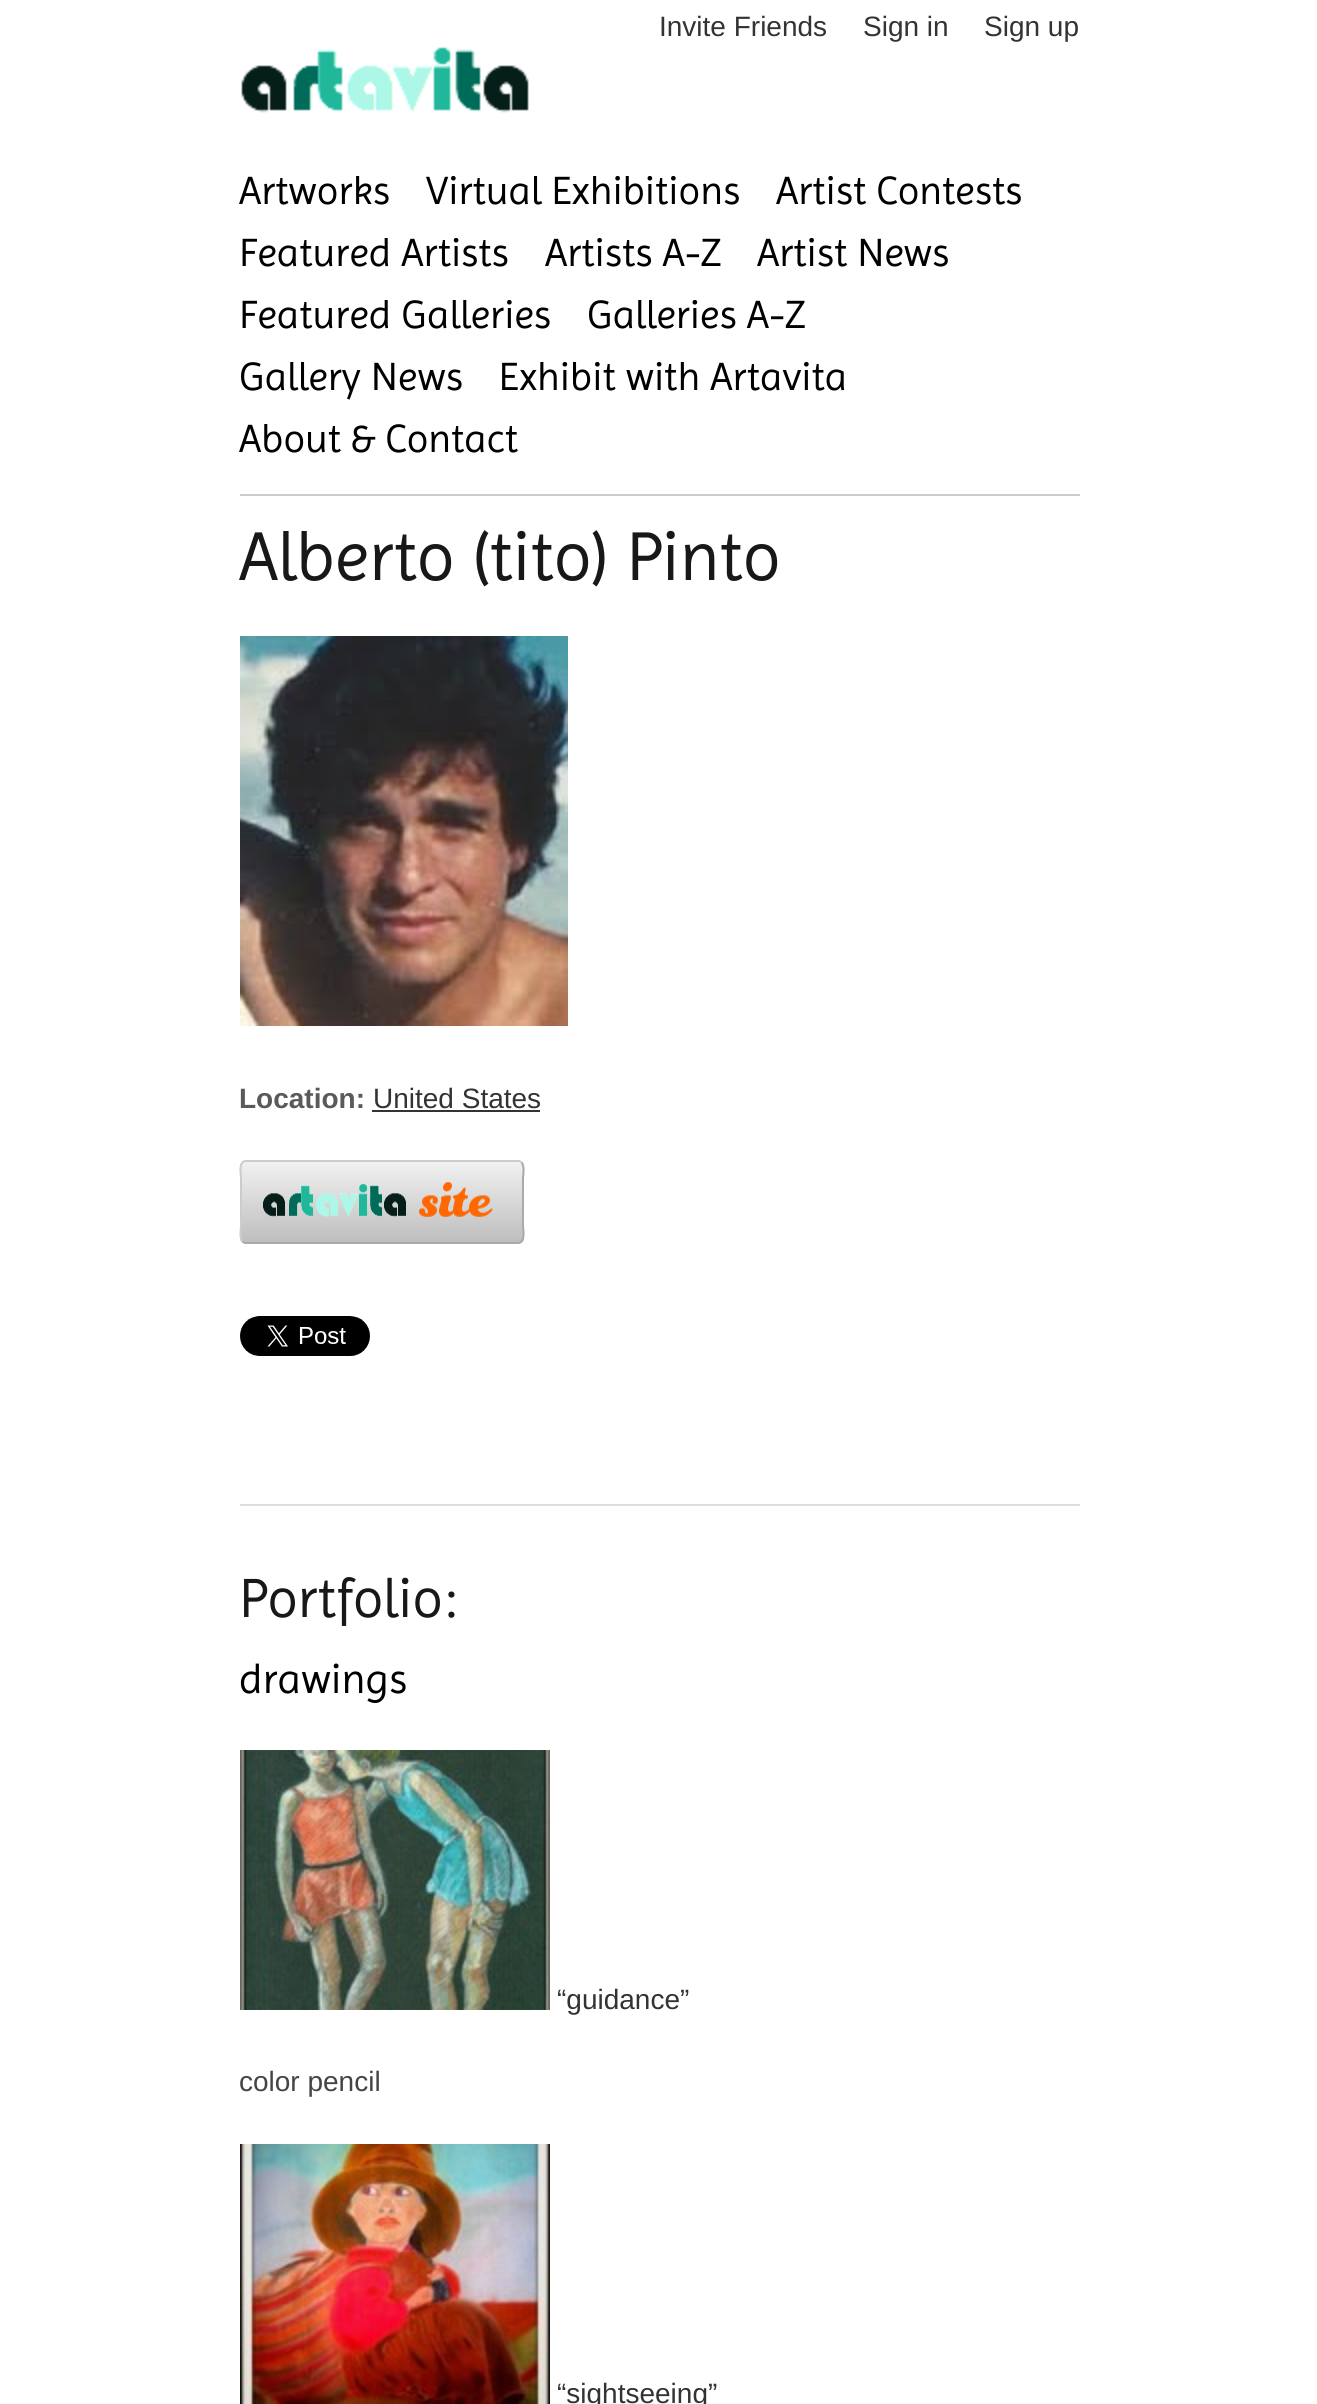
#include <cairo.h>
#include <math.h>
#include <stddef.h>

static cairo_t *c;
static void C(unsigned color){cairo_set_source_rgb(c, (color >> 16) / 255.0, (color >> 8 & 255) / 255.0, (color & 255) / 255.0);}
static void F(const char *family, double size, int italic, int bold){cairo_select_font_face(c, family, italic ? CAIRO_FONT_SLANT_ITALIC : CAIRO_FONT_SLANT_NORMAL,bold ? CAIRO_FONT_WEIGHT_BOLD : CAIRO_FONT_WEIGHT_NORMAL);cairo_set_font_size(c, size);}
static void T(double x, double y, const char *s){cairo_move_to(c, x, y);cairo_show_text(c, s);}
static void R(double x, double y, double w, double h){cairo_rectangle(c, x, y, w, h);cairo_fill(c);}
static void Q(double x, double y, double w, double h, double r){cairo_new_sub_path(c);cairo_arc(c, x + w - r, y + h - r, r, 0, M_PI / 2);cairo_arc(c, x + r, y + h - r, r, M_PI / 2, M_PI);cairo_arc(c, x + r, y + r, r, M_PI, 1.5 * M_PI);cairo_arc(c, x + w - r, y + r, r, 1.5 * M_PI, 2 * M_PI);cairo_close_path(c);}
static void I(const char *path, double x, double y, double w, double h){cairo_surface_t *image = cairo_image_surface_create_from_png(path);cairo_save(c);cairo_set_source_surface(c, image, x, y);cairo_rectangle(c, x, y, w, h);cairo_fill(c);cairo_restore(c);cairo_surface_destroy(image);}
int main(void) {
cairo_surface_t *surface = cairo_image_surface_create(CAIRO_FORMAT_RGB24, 1317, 2404);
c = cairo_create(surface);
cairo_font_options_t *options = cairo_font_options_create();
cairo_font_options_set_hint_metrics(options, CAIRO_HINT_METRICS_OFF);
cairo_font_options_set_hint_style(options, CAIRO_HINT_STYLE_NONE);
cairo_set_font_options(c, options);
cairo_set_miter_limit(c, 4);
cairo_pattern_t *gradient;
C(0xffffff);
cairo_paint(c);
C(0xcccccc);
R(240,494,840,2);
F("Liberation Sans",28,0,0);
C(0x333333);
T(659,36,"Invite Friends");
T(863,36,"Sign in");
T(984,36,"Sign up");
I("1.png",241,47,288,66);
F("Imprima",40,0,0);
C(0x000000);
T(239,204,"Artworks");
T(426,204,"Virtual Exhibitions");
T(776,204,"Artist Contests");
T(239,266,"Featured Artists");
T(545,266,"Artists A-Z");
T(757,266,"Artist News");
T(239,328,"Featured Galleries");
T(587,328,"Galleries A-Z");
T(239,390,"Gallery News");
T(499,390,"Exhibit with Artavita");
T(239,452,"About & Contact");
F("Imprima",70,0,0);
C(0x181818);
T(239,580,"Alberto (tito) Pinto");
I("2.png",240,636,328,390);
F("Liberation Sans",28,0,1);
C(0x5a5a5a);
T(239,1108,"Location:");
F("Liberation Sans",28,0,0);
C(0x333333);
T(373,1108,"United States");
R(372,1110,168,2);
C(0xeeeeee);
Q(240,1160,284,84,6);
cairo_fill(c);
cairo_save(c);
Q(240,1160,284,84,6);
cairo_clip(c);
gradient = cairo_pattern_create_linear(382,1162,382,1242);
cairo_pattern_add_color_stop_rgba(gradient,0,1,1,1,.2);
cairo_pattern_add_color_stop_rgba(gradient,1,0,0,0,.2);
cairo_set_source(c,gradient);
cairo_pattern_destroy(gradient);
R(240,1162,284,80);
cairo_restore(c);
cairo_new_path(c);
cairo_move_to(c,521.5,1162.5);
cairo_curve_to(c,525,1166,523,1176.5,523,1178);
cairo_line_to(c,523,1226);
cairo_curve_to(c,523,1229,526,1243,518,1243);
cairo_line_to(c,246,1243);
cairo_curve_to(c,244.5,1243,243.5,1242.5,242.5,1241.5);
C(0xaaaaaa);
cairo_stroke(c);
cairo_new_path(c);
cairo_move_to(c,242.5,1241.5);
cairo_curve_to(c,239,1238,241,1227.5,241,1226);
cairo_line_to(c,241,1178);
cairo_curve_to(c,241,1175,238,1161,246,1161);
cairo_line_to(c,518,1161);
cairo_curve_to(c,519.5,1161,520.5,1161.5,521.5,1162.5);
C(0xcccccc);
cairo_stroke(c);
I("3.png",263,1182,230,35);
I("4.png",240,1316,130,40);
C(0xdddddd);
R(240,1504,840,2);
F("Imprima",56,0,0);
C(0x181818);
T(239,1617,"Portfolio:");
F("Imprima",42,0,0);
C(0x000000);
T(239,1693,"drawings");
I("5.png",240,1750,310,260);
F("Liberation Sans",28,0,0);
C(0x333333);
T(557,2009,"“guidance”");
C(0x444444);
T(239,2091,"color pencil");
I("6.png",240,2144,310,260);
C(0x333333);
T(557,2403,"“sightseeing”");
cairo_surface_write_to_png(surface, "o.png");
cairo_font_options_destroy(options);
cairo_destroy(c);
cairo_surface_destroy(surface);
return 0;
}
